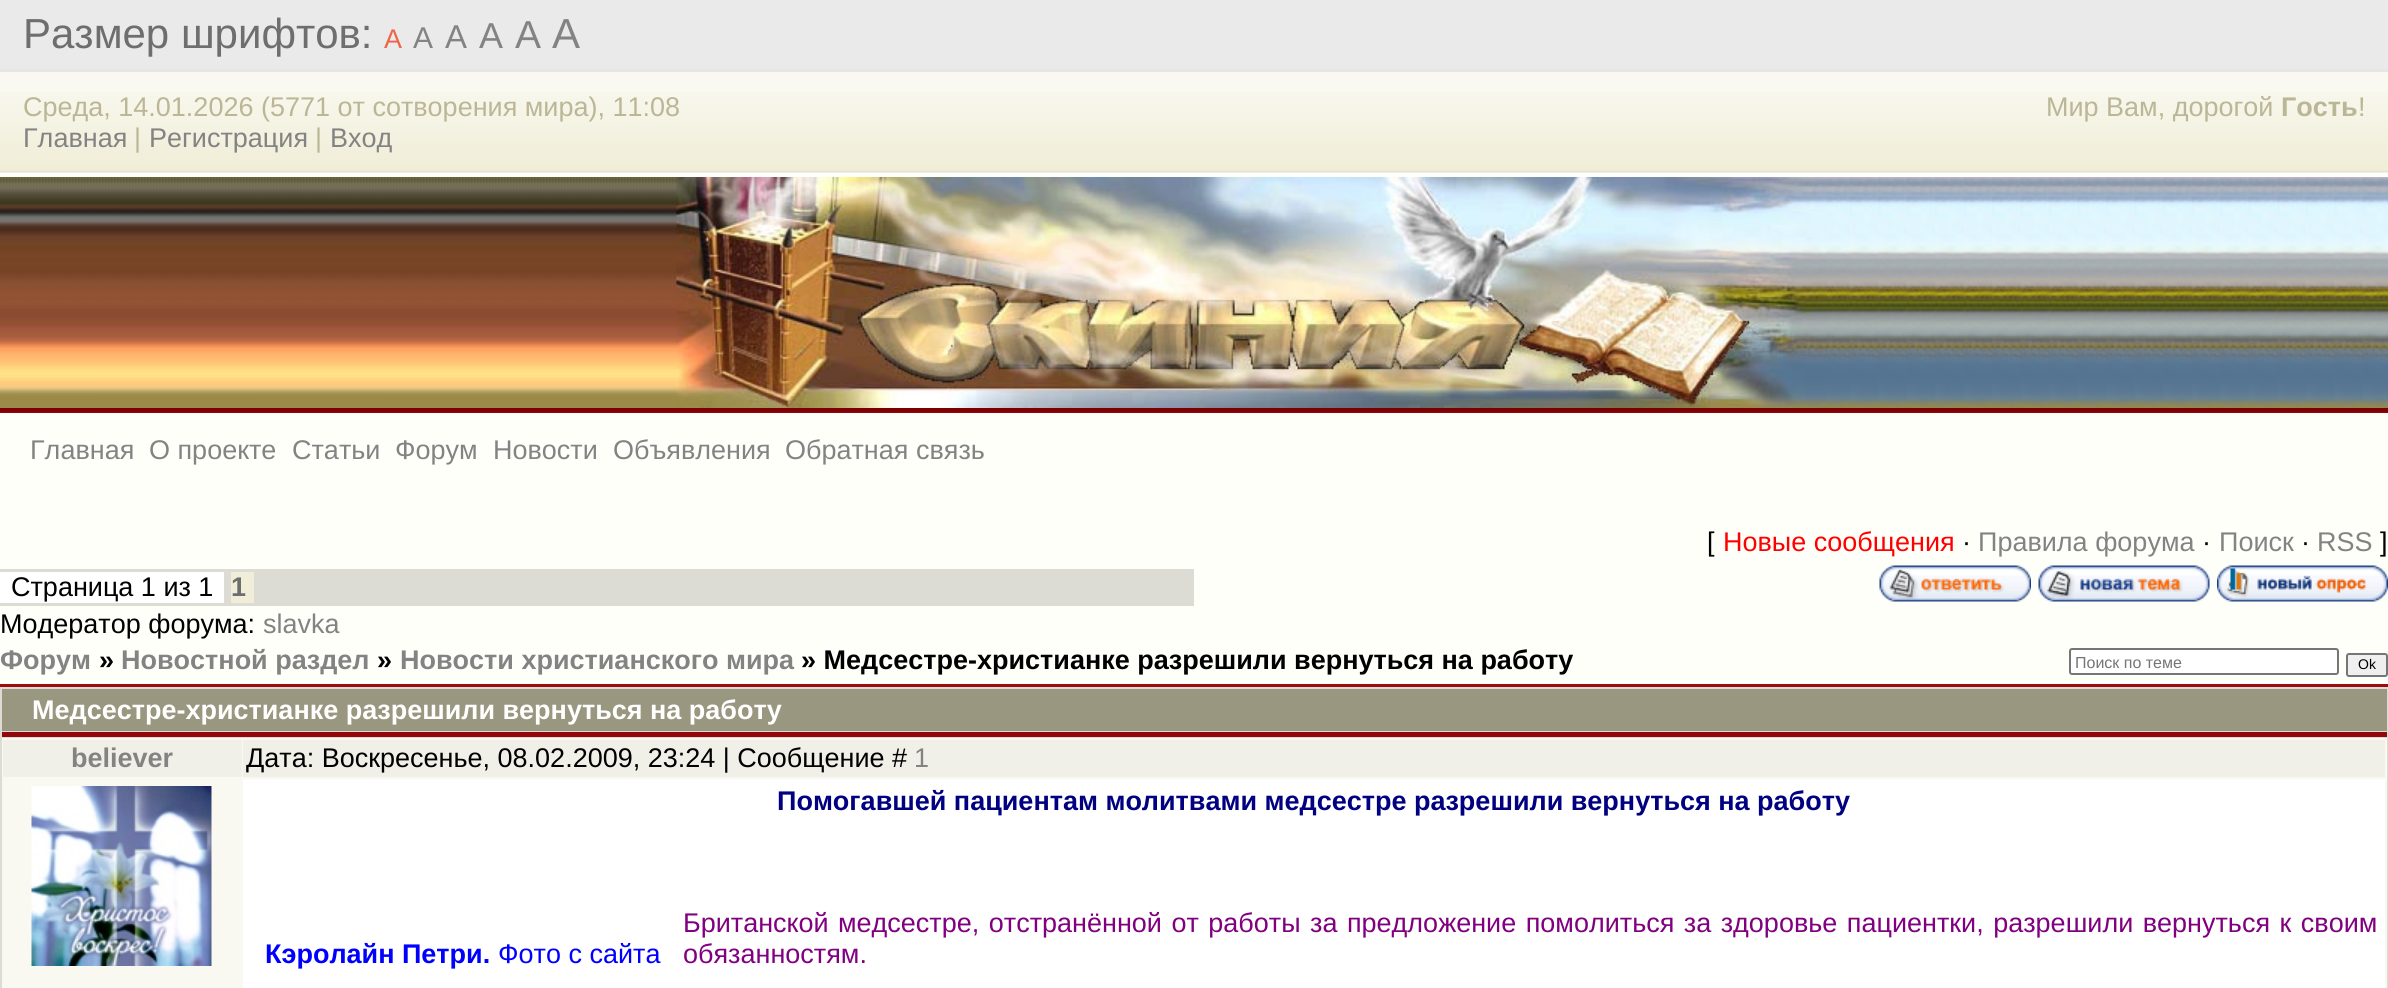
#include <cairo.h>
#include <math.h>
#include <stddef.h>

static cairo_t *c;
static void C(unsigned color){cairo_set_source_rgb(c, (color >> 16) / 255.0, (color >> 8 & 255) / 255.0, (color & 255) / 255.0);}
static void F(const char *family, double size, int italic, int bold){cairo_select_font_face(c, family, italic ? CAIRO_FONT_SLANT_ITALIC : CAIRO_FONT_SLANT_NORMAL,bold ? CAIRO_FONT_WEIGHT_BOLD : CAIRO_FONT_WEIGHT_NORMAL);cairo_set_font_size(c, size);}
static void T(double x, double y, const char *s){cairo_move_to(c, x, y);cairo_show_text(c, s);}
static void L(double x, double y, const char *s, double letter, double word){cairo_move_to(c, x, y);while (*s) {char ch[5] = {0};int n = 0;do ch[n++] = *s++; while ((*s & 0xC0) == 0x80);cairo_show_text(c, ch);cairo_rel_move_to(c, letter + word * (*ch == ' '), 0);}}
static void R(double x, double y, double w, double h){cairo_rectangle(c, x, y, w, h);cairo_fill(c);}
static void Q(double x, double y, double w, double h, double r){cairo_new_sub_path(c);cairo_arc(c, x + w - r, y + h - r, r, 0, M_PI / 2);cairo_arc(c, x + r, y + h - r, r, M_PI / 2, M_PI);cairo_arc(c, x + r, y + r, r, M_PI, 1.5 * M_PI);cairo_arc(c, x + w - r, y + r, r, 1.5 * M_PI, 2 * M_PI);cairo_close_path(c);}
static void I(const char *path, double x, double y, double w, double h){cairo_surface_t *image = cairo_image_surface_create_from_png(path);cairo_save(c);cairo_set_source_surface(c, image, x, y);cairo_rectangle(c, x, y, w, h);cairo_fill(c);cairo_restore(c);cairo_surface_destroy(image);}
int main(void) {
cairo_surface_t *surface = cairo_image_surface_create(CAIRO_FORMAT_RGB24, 2388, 988);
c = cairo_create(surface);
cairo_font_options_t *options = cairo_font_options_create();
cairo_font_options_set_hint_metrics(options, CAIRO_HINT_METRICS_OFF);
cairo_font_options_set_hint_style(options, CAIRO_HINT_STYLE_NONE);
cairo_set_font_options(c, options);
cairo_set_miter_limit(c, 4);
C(0xfffffa);
cairo_paint(c);
C(0xeaeaea);
R(0,0,2388,69);
C(0xe6e6e6);
R(0,69,2388,3);
F("Liberation Sans",42,0,0);
C(0x6e6e6e);
T(23,48,"Размер шрифтов:");
F("Liberation Sans",27,0,0);
C(0xed664b);
T(384,48,"A");
F("Liberation Sans",30,0,0);
C(0x838383);
T(413,48,"A");
F("Liberation Sans",33,0,0);
T(445,48,"A");
F("Liberation Sans",36,0,0);
T(479,48,"A");
F("Liberation Sans",39,0,0);
T(515,48,"A");
F("Liberation Sans",42,0,0);
T(552,48,"A");
C(0xfaf9f1);
R(0,72,2388,20);
I("1.png",0,92,2388,82);
F("Liberation Sans",27,0,0);
C(0xbbb696);
T(23,116,"Среда, 14.01.2026 (5771 от сотворения мира), 11:08");
C(0x838383);
T(23,147,"Главная");
C(0xbbb696);
T(134,147,"|");
C(0x838383);
T(149,147,"Регистрация");
C(0xbbb696);
T(315,147,"|");
C(0x838383);
T(330,147,"Вход");
C(0xbbb696);
T(2046,116,"Мир Вам, дорогой");
F("Liberation Sans",27,0,1);
T(2281,116,"Гость");
F("Liberation Sans",27,0,0);
T(2358,116,"!");
I("2.png",0,177,677,231);
I("3.png",676,177,518,231);
I("4.png",1827,177,561,231);
I("5.png",1194,177,633,231);
C(0x9e0b0f);
R(0,412,2388,1);
I("6.png",0,408,2388,5);
C(0x838383);
T(30,459,"Главная");
T(149,459,"О проекте");
T(292,459,"Статьи");
T(395,459,"Форум");
T(493,459,"Новости");
T(613,459,"Объявления");
T(785,459,"Обратная связь");
C(0x000000);
T(1707,551,"[");
C(0xff0000);
T(1723,551,"Новые сообщения");
C(0x000000);
T(1962,551,"·");
C(0x838383);
T(1978,551,"Правила форума");
C(0x000000);
T(2202,551,"·");
C(0x838383);
T(2219,551,"Поиск");
C(0x000000);
T(2301,551,"·");
C(0x838383);
T(2317,551,"RSS");
C(0x000000);
T(2380,551,"]");
C(0xdcdbd4);
R(0,569,1194,37);
C(0xffffff);
R(0,572,224,31);
C(0x000000);
T(11,596,"Страница 1 из 1");
C(0xf0eed8);
R(231,572,23,31);
F("Liberation Sans",27,0,1);
C(0x6e6e6e);
T(231,596,"1");
I("7.png",1879,565,152,37);
I("8.png",2038,565,172,37);
I("9.png",2217,565,171,37);
F("Liberation Sans",27,0,0);
C(0x000000);
T(0,633,"Модератор форума:");
C(0x838383);
T(263,633,"slavka");
F("Liberation Sans",27,0,1);
T(0,669,"Форум");
C(0x000000);
T(99,669,"»");
C(0x838383);
T(121,669,"Новостной раздел");
C(0x000000);
T(377,669,"»");
C(0x838383);
T(400,669,"Новости христианского мира");
C(0x000000);
T(801,669,"» Медсестре-христианке разрешили вернуться на работу");
C(0xffffff);
Q(2070,649,268,25,2);
cairo_fill_preserve(c);
C(0x767676);
cairo_stroke(c);
F("Liberation Sans",16,0,0);
C(0x757575);
T(2075,668,"Поиск по теме");
C(0xefefef);
Q(2347,654,40,22,2);
cairo_fill_preserve(c);
C(0x767676);
cairo_stroke(c);
F("Liberation Sans",14,0,0);
C(0x000000);
T(2358,669,"Ok");
C(0xdcdbd4);
R(0,687,2388,301);
C(0x9e0b0f);
R(0,684,2388,3);
C(0x99977f);
R(2,689,2385,42);
F("Liberation Sans",27,0,1);
C(0xffffff);
T(32,719,"Медсестре-христианке разрешили вернуться на работу");
C(0x93070a);
R(2,732,2385,5);
C(0xfaf9f1);
R(2,738,2385,250);
C(0xf1f0e8);
R(3,740,239,37);
C(0x838383);
T(71,767,"believer");
C(0xf1f0e8);
R(243,740,2142,37);
F("Liberation Sans",27,0,0);
C(0x000000);
T(246,767,"Дата: Воскресенье, 08.02.2009, 23:24 | Сообщение #");
C(0x838383);
T(914,767,"1");
I("10.png",31,786,181,180);
C(0xffffff);
R(243,779,2142,209);
F("Liberation Sans",27,0,1);
C(0x000080);
T(777,810,"Помогавшей пациентам молитвами медсестре разрешили вернуться на работу");
C(0x0000ff);
T(265,963,"Кэролайн Петри.");
F("Liberation Sans",27,0,0);
T(498,963,"Фото с сайта");
C(0x800080);
L(683,932,"Британской медсестре, отстранённой от работы за предложение помолиться за здоровье пациентки, разрешили вернуться к своим",0,2);
T(683,963,"обязанностям.");
cairo_surface_write_to_png(surface, "o.png");
cairo_font_options_destroy(options);
cairo_destroy(c);
cairo_surface_destroy(surface);
return 0;
}
